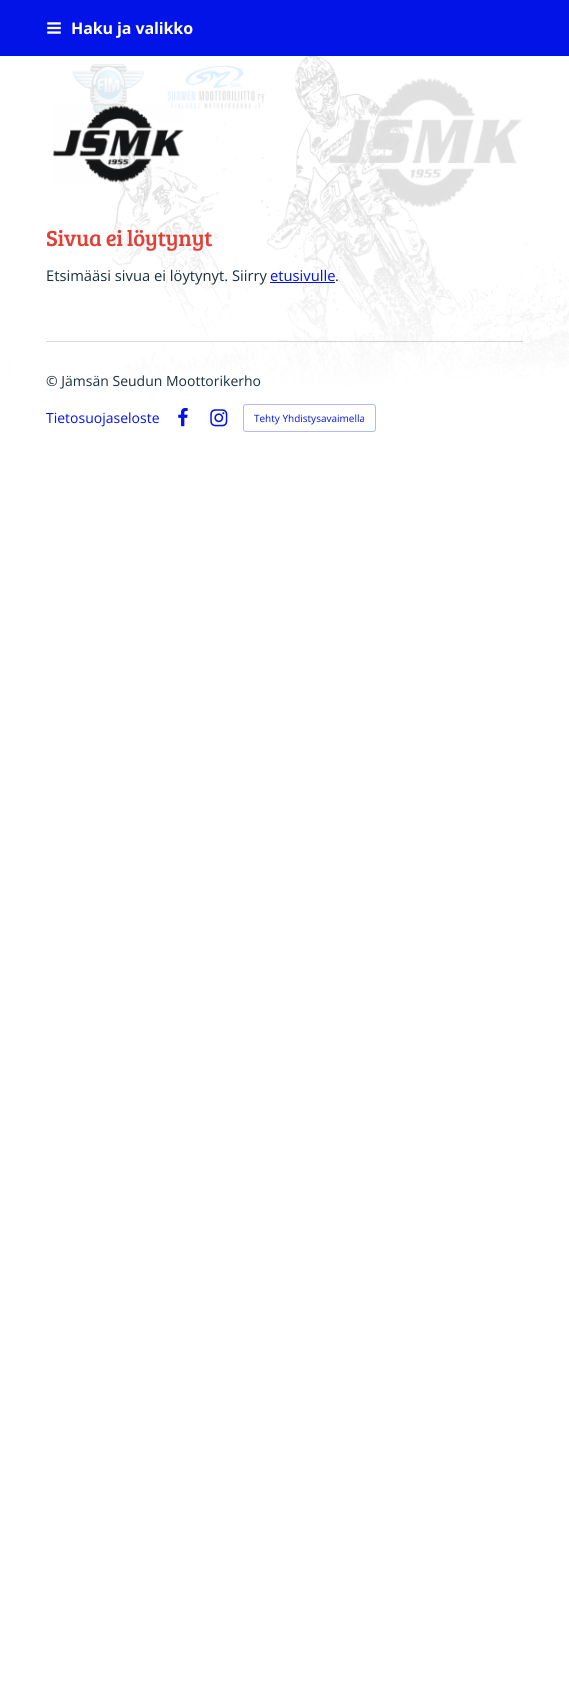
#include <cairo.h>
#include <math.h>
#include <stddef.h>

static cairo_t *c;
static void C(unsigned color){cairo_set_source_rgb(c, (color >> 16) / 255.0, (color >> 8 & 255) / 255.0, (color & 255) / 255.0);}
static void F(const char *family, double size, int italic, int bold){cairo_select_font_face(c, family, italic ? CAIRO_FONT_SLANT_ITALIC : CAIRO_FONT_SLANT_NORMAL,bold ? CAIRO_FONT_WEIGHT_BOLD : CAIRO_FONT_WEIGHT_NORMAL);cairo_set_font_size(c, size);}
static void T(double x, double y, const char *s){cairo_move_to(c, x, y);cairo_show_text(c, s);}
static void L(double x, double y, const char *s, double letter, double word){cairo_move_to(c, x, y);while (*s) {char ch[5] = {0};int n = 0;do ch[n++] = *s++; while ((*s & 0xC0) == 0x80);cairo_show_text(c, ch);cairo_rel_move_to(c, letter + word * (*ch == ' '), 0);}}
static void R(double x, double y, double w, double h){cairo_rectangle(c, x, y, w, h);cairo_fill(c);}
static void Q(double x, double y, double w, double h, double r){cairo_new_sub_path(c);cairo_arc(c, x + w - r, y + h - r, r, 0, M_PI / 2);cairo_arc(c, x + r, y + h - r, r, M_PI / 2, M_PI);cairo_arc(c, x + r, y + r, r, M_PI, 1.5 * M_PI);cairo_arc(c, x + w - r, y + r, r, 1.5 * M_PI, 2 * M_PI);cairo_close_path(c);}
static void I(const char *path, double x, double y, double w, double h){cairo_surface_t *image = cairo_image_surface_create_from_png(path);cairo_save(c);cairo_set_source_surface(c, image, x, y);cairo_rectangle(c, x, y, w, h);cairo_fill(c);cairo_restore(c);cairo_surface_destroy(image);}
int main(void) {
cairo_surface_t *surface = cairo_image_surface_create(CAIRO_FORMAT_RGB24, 569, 1694);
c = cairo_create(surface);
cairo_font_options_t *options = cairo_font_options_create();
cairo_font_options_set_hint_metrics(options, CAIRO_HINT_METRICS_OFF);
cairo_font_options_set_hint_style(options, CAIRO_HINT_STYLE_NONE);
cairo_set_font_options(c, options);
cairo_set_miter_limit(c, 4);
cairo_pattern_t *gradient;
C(0xffffff);
cairo_paint(c);
C(0x0113e6);
R(0,0,569,56);
I("1.png",47,22,14,12);
F("Open Sans",16,0,1);
C(0xffffff);
L(71,34,"Haku ja valikko",-.1,0);
I("2.png",0,56,569,336);
gradient = cairo_pattern_create_linear(285,56,285,393);
cairo_pattern_add_color_stop_rgba(gradient,.4,1,1,1,0);
cairo_pattern_add_color_stop_rgba(gradient,1,1,1,1,1);
cairo_set_source(c,gradient);
cairo_pattern_destroy(gradient);
R(0,207,569,185);
I("3.png",52,105,132,78);
F("Bree Serif",22.5,0,0);
C(0xe23f35);
L(46,246,"Sivua ei löytynyt",-.3,0);
F("Open Sans",14.75,0,0);
C(0x19303e);
T(46,281,"Etsimääsi sivua ei löytynyt. Siirry");
C(0x0113e6);
T(270,281,"etusivulle");
R(270,282,65,1);
C(0x19303e);
T(335,281,".");
cairo_set_source_rgba(c,0,0,0,0.15);
R(46,341,477,1);
F("Open Sans",14,0,0);
C(0x19303e);
T(46,386,"© Jämsän Seudun Moottorikerho");
C(0x0113e6);
T(46,423,"Tietosuojaseloste");
I("4.png",178,408,10,19);
I("5.png",210,409,18,18);
Q(243.5,404.5,132,27,2.5);
C(0xb3b8f8);
cairo_set_line_width(c,1);
cairo_stroke(c);
F("Open Sans",10,0,0);
C(0x0113e6);
T(254,422,"Tehty Yhdistysavaimella");
cairo_surface_write_to_png(surface, "o.png");
cairo_font_options_destroy(options);
cairo_destroy(c);
cairo_surface_destroy(surface);
return 0;
}
